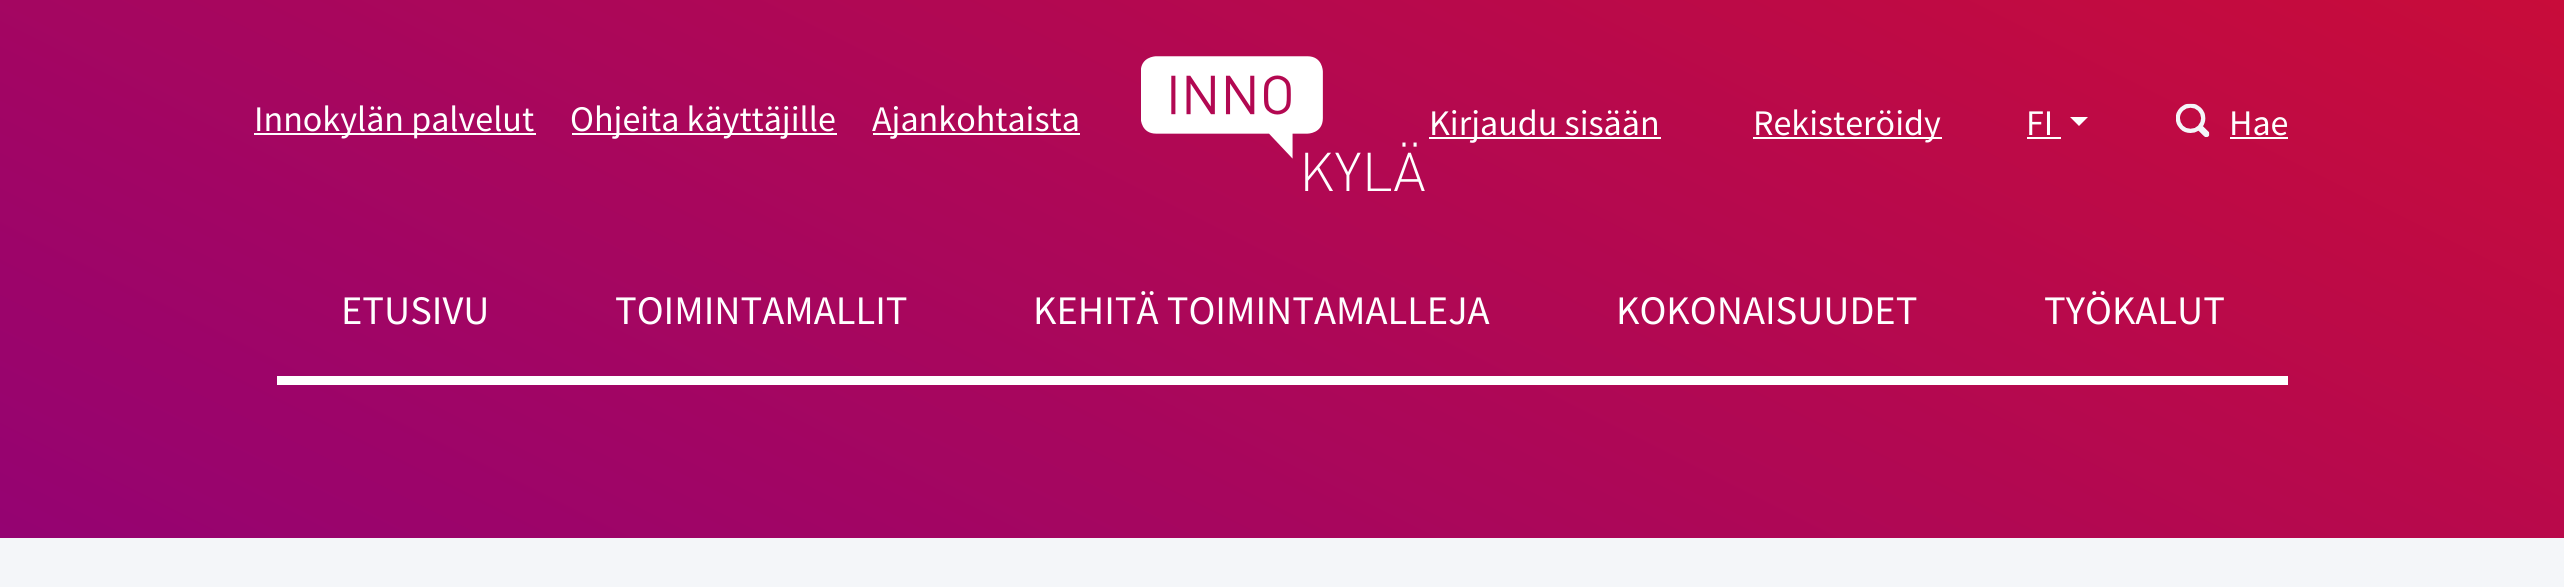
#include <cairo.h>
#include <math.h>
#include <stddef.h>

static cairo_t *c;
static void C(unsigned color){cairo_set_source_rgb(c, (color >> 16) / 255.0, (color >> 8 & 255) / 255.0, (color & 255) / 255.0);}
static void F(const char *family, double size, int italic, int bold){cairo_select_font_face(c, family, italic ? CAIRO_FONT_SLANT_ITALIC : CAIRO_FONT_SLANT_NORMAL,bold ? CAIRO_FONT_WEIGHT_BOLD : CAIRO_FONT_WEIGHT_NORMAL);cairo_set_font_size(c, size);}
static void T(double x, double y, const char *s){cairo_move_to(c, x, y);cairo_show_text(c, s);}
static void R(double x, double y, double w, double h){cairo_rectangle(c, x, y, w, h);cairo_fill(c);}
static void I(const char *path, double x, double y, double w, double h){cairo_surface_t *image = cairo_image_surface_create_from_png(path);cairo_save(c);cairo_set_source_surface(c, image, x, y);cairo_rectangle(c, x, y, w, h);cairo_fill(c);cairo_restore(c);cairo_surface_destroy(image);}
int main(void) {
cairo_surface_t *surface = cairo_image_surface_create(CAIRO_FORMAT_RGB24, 2564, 587);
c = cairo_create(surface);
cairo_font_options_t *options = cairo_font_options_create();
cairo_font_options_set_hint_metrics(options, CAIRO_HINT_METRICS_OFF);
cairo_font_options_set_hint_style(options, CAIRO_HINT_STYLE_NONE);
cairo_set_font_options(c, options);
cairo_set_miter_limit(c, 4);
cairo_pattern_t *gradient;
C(0xffffff);
cairo_paint(c);
gradient = cairo_pattern_create_linear(1764,-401,801,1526);
cairo_pattern_add_color_stop_rgba(gradient,0,0.784,0.047,0.227,1);
cairo_pattern_add_color_stop_rgba(gradient,1,0.518,0,0.518,1);
cairo_set_source(c,gradient);
cairo_pattern_destroy(gradient);
R(0,0,2564,538);
C(0xf4f6f9);
R(0,538,2564,49);
I("1.png",1141,56,284,135);
C(0xffffff);
R(254,133,282,2);
F("Source Sans Pro",36,0,0);
T(254,131,"Innokylän palvelut");
R(572,133,265,2);
T(570,131,"Ohjeita käyttäjille");
R(873,133,207,2);
T(872,131,"Ajankohtaista");
R(1429,137,232,2);
T(1429,135,"Kirjaudu sisään");
R(1753,137,189,2);
T(1753,135,"Rekisteröidy");
T(2026,135,"FI");
R(2027,137,34,2);
cairo_new_path(c);
cairo_move_to(c,2070,117);
cairo_line_to(c,2088,117);
cairo_line_to(c,2079,126);
cairo_close_path(c);
cairo_fill(c);
I("2.png",2176,103,34,35);
T(2229,135,"Hae");
R(2230,137,58,2);
R(277,376,2011,9);
F("Source Sans Pro",40.5,0,0);
T(341,324,"ETUSIVU");
T(615,324,"TOIMINTAMALLIT");
T(1033,324,"KEHITÄ TOIMINTAMALLEJA");
T(1616,324,"KOKONAISUUDET");
T(2044,324,"TYÖKALUT");
cairo_surface_write_to_png(surface, "o.png");
cairo_font_options_destroy(options);
cairo_destroy(c);
cairo_surface_destroy(surface);
return 0;
}
